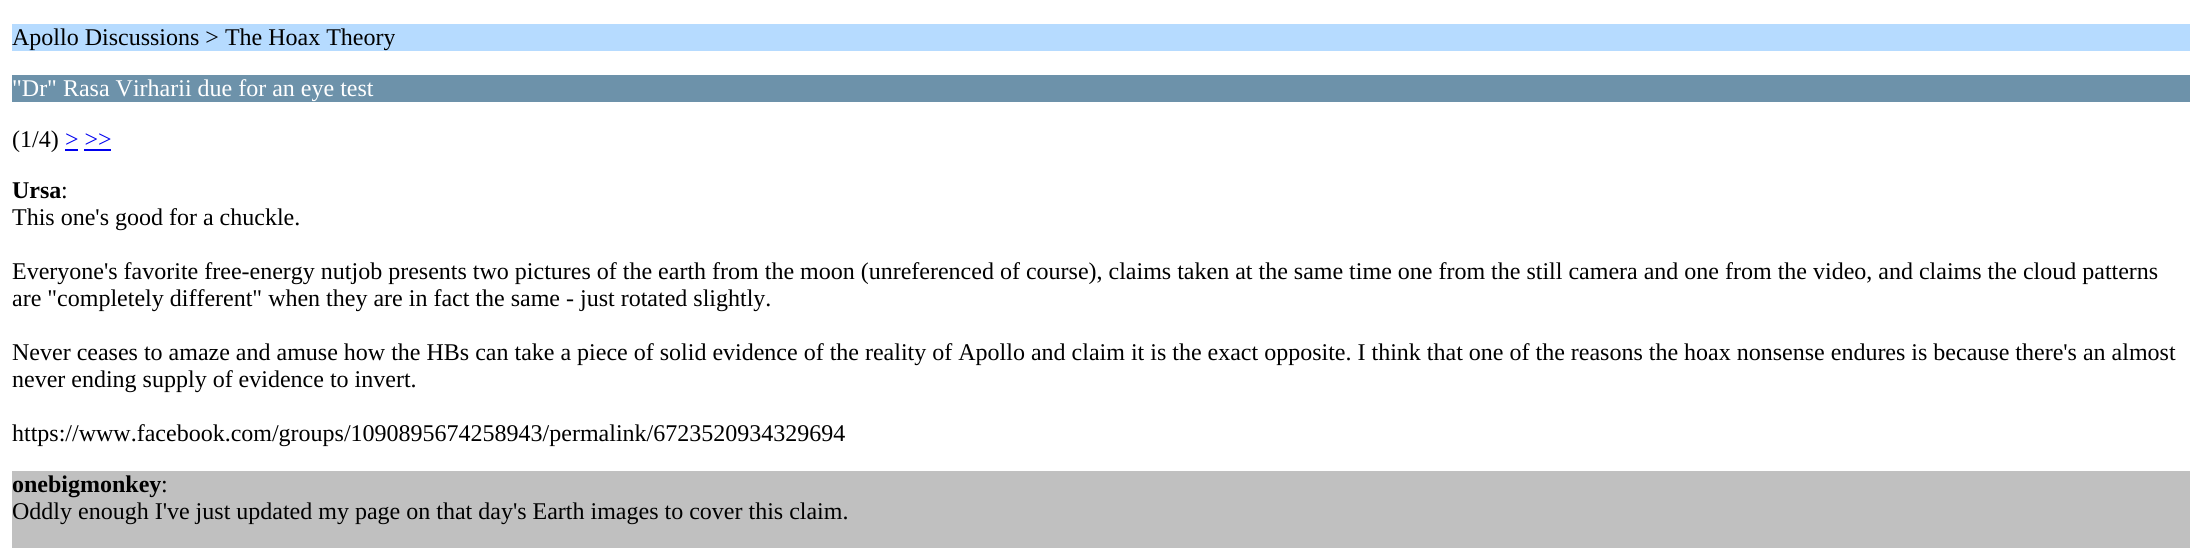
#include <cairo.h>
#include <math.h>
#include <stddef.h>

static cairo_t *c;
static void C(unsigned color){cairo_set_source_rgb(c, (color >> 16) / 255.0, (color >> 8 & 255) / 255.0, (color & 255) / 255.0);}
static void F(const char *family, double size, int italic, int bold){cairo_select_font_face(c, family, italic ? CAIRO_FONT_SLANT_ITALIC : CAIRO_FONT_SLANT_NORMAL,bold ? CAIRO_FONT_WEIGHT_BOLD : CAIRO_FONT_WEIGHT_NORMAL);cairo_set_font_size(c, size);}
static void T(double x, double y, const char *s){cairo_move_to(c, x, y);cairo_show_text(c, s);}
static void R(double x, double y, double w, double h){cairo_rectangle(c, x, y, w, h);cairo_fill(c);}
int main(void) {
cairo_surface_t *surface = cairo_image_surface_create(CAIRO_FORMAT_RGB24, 2201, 548);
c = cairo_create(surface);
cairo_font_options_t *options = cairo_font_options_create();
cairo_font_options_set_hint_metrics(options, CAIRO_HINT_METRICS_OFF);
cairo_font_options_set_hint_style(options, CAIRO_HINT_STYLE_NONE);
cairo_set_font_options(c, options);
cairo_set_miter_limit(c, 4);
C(0xffffff);
cairo_paint(c);
C(0xb6dbff);
R(12,24,2178,27);
F("Liberation Serif",24,0,0);
C(0x000000);
T(12,45,"Apollo Discussions > The Hoax Theory");
C(0x6d92aa);
R(12,75,2178,27);
C(0xffffff);
T(12,96,"\"Dr\" Rasa Virharii due for an eye test");
C(0x000000);
T(12,147,"(1/4)");
C(0x0000ee);
T(65,147,"> >>");
R(65,149,13,2);
R(84,149,27,2);
F("Liberation Serif",24,0,1);
C(0x000000);
T(12,198,"Ursa");
F("Liberation Serif",24,0,0);
T(61,198,":");
T(12,225,"This one's good for a chuckle.");
T(12,279,"Everyone's favorite free-energy nutjob presents two pictures of the earth from the moon (unreferenced of course), claims taken at the same time one from the still camera and one from the video, and claims the cloud patterns");
T(12,306,"are \"completely different\" when they are in fact the same - just rotated slightly.");
T(12,360,"Never ceases to amaze and amuse how the HBs can take a piece of solid evidence of the reality of Apollo and claim it is the exact opposite. I think that one of the reasons the hoax nonsense endures is because there's an almost");
T(12,387,"never ending supply of evidence to invert.");
T(12,441,"https://www.facebook.com/groups/1090895674258943/permalink/6723520934329694");
C(0xc0c0c0);
R(12,471,2178,77);
F("Liberation Serif",24,0,1);
C(0x000000);
T(12,492,"onebigmonkey");
F("Liberation Serif",24,0,0);
T(161,492,":");
T(12,519,"Oddly enough I've just updated my page on that day's Earth images to cover this claim.");
cairo_surface_write_to_png(surface, "o.png");
cairo_font_options_destroy(options);
cairo_destroy(c);
cairo_surface_destroy(surface);
return 0;
}
